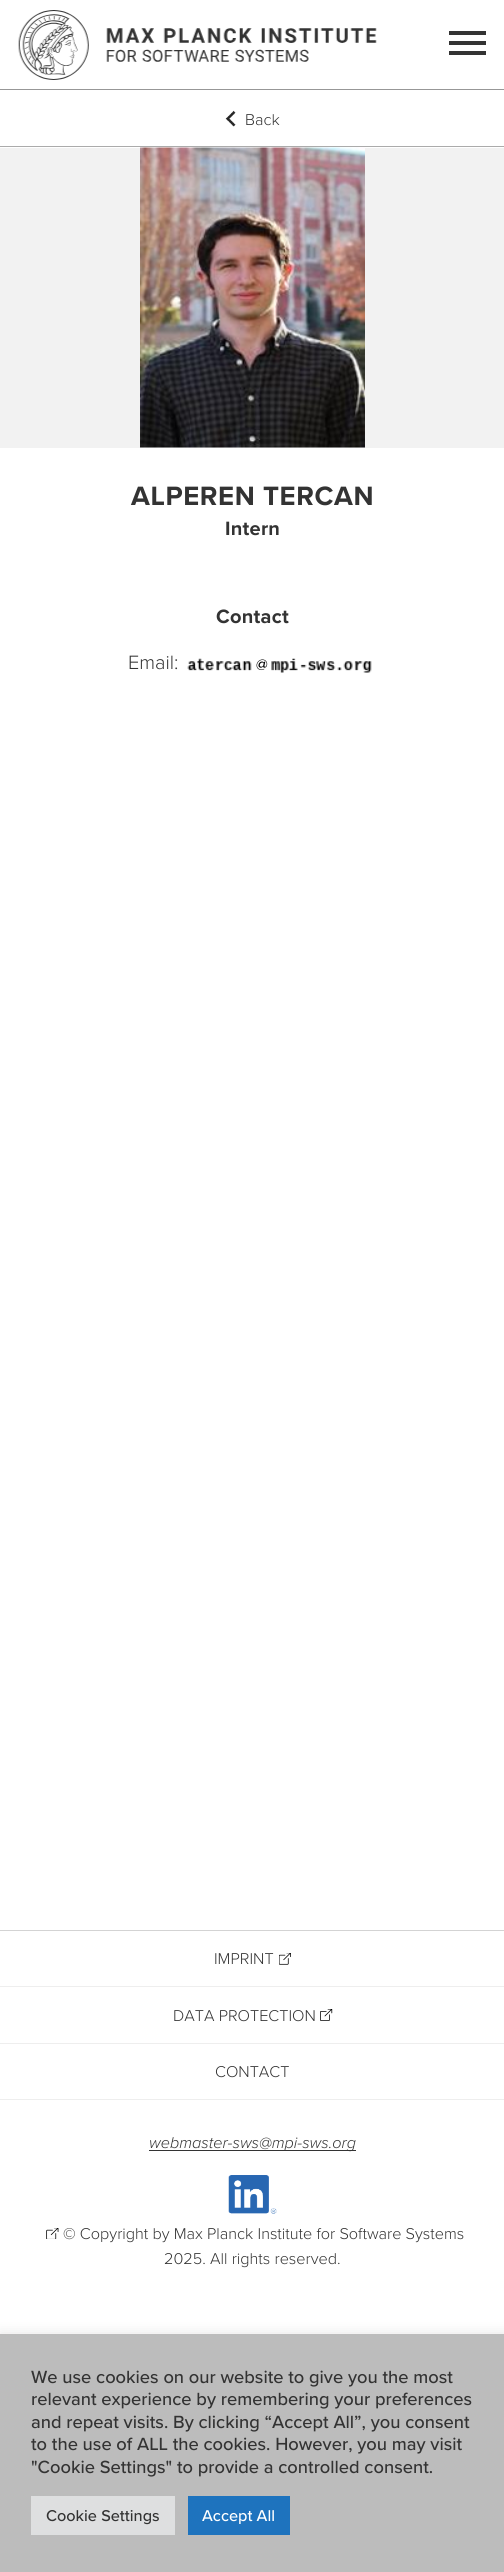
#include <cairo.h>
#include <math.h>
#include <stddef.h>

static cairo_t *c;
static void C(unsigned color){cairo_set_source_rgb(c, (color >> 16) / 255.0, (color >> 8 & 255) / 255.0, (color & 255) / 255.0);}
static void F(const char *family, double size, int italic, int bold){cairo_select_font_face(c, family, italic ? CAIRO_FONT_SLANT_ITALIC : CAIRO_FONT_SLANT_NORMAL,bold ? CAIRO_FONT_WEIGHT_BOLD : CAIRO_FONT_WEIGHT_NORMAL);cairo_set_font_size(c, size);}
static void T(double x, double y, const char *s){cairo_move_to(c, x, y);cairo_show_text(c, s);}
static void L(double x, double y, const char *s, double letter, double word){cairo_move_to(c, x, y);while (*s) {char ch[5] = {0};int n = 0;do ch[n++] = *s++; while ((*s & 0xC0) == 0x80);cairo_show_text(c, ch);cairo_rel_move_to(c, letter + word * (*ch == ' '), 0);}}
static void R(double x, double y, double w, double h){cairo_rectangle(c, x, y, w, h);cairo_fill(c);}
static void Q(double x, double y, double w, double h, double r){cairo_new_sub_path(c);cairo_arc(c, x + w - r, y + h - r, r, 0, M_PI / 2);cairo_arc(c, x + r, y + h - r, r, M_PI / 2, M_PI);cairo_arc(c, x + r, y + r, r, M_PI, 1.5 * M_PI);cairo_arc(c, x + w - r, y + r, r, 1.5 * M_PI, 2 * M_PI);cairo_close_path(c);}
static void S(double x, double y, double w, double h, double r, double blur, double alpha){cairo_push_group_with_content(c, CAIRO_CONTENT_ALPHA);cairo_set_operator(c, CAIRO_OPERATOR_SOURCE);for (int i = 15; i >= -15 && fmin(w, h) + blur * i / 3 > 0; i -= 2) {double e = blur * i / 6;cairo_set_source_rgba(c, 0, 0, 0, alpha * erfc((i - 1) / 8.5) / 2);Q(x - e, y - e, w + 2 * e, h + 2 * e, fmax(0, fmin(r + e + blur * .6, fmin(w, h) / 2 + e)));cairo_fill(c);}cairo_pattern_t *soft = cairo_pop_group(c);cairo_mask(c, soft);cairo_pattern_destroy(soft);}
static void I(const char *path, double x, double y, double w, double h){cairo_surface_t *image = cairo_image_surface_create_from_png(path);cairo_save(c);cairo_set_source_surface(c, image, x, y);cairo_rectangle(c, x, y, w, h);cairo_fill(c);cairo_restore(c);cairo_surface_destroy(image);}
int main(void) {
cairo_surface_t *surface = cairo_image_surface_create(CAIRO_FORMAT_RGB24, 504, 2572);
c = cairo_create(surface);
cairo_font_options_t *options = cairo_font_options_create();
cairo_font_options_set_hint_metrics(options, CAIRO_HINT_METRICS_OFF);
cairo_font_options_set_hint_style(options, CAIRO_HINT_STYLE_NONE);
cairo_set_font_options(c, options);
cairo_set_miter_limit(c, 4);
C(0xffffff);
cairo_paint(c);
C(0x979797);
R(0,89,504,1);
I("1.png",18,10,359,70);
C(0x333333);
R(449,31,37,4);
R(449,41,37,4);
R(449,51,37,4);
C(0xababab);
R(0,146,504,1);
I("2.png",225,110,11,17);
F("Proxima Nova Light",16.25,0,0);
C(0x333333);
T(245,125,"Back");
C(0xf2f2f2);
R(0,148,504,300);
I("3.png",140,147,225,301);
F("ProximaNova",27.5,0,1);
C(0x333333);
L(131,505,"ALPEREN TERCAN",.6,0);
F("ProximaNova",20,0,1);
L(225,535,"Intern",.25,0);
L(216,623,"Contact",.25,0);
F("Proxima Nova Light",20,0,0);
T(128,669,"Email:");
I("4.png",187,658,65,13);
F("Proxima Nova Medium",15,0,0);
C(0x000000);
T(256,669,"@");
I("5.png",271,658,101,15);
C(0xd3d3d3);
R(0,1930,504,1);
F("Proxima Nova Light",16.25,0,0);
C(0x333333);
T(214,1964,"IMPRINT");
I("6.png",279,1953,12,12);
C(0xeeeeee);
R(0,1986,504,1);
C(0x333333);
T(173,2021,"DATA PROTECTION");
I("7.png",320,2009,13,12);
C(0xeeeeee);
R(0,2043,504,1);
R(0,2099,504,1);
C(0x333333);
T(215,2077,"CONTACT");
R(149,2150,207,1);
F("Proxima Nova Light",16.25,1,0);
T(149,2148,"webmaster-sws@mpi-sws.org");
I("8.png",228,2175,49,39);
I("9.png",46,2228,13,11);
F("Proxima Nova Light",16.25,0,0);
T(63,2239,"© Copyright by Max Planck Institute for Software Systems");
T(164,2264,"2025. All rights reserved.");
C(0xacabab);
S(0,2333,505,238,0,6,.3);
C(0xbcbcbc);
R(0,2334,504,238);
F("Proxima Nova Medium",18.3,0,0);
C(0x333333);
T(31,2383,"We use cookies on our website to give you the most");
T(31,2405,"relevant experience by remembering your preferences");
T(31,2428,"and repeat visits. By clicking “Accept All”, you consent");
T(31,2450,"to the use of ALL the cookies. However, you may visit");
T(31,2473,"\"Cookie Settings\" to provide a controlled consent.");
C(0xdedfe0);
R(31,2496,144,39);
F("Proxima Nova Medium",16.25,0,0);
C(0x333333);
T(46,2521,"Cookie Settings");
C(0x1e73be);
R(188,2496,102,39);
C(0xffffff);
T(202,2521,"Accept All");
cairo_surface_write_to_png(surface, "o.png");
cairo_font_options_destroy(options);
cairo_destroy(c);
cairo_surface_destroy(surface);
return 0;
}
